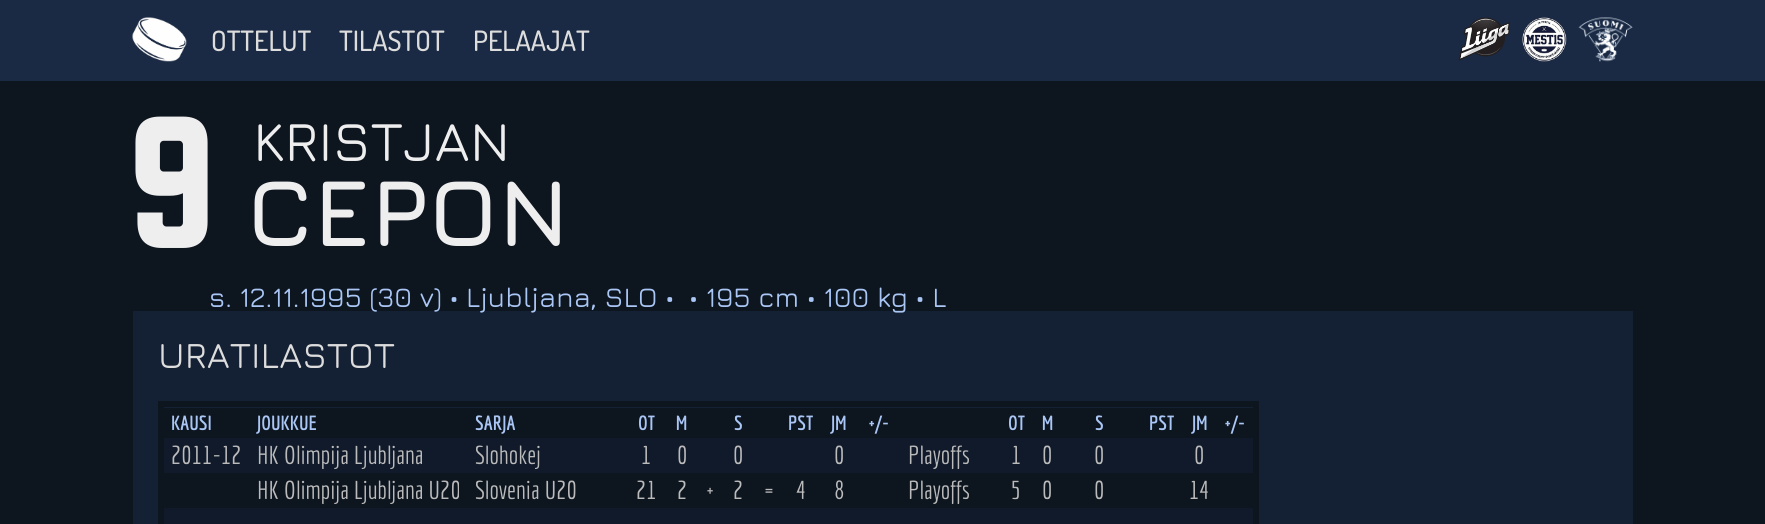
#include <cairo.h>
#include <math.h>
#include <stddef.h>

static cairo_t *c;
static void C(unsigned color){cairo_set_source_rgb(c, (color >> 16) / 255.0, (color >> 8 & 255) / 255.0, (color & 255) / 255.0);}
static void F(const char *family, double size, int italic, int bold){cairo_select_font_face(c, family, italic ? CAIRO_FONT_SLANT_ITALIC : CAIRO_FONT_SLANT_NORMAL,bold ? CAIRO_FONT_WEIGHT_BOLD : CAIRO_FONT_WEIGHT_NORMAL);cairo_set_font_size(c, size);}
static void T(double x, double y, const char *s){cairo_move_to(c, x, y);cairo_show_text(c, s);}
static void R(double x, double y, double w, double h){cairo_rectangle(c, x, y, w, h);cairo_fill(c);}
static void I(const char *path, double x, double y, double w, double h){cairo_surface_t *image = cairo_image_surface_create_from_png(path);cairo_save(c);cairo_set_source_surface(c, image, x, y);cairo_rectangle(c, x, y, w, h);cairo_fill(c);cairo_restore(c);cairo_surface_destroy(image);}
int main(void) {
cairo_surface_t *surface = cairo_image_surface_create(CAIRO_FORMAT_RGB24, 1765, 524);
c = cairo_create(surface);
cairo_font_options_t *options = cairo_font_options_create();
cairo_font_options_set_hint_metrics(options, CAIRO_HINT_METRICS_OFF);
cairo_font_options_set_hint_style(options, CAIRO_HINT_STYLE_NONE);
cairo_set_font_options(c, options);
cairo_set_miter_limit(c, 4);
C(0x0d151f);
cairo_paint(c);
C(0x1b2a44);
R(0,0,1765,81);
I("1.png",132,17,55,45);
F("Dosis Medium",28,0,0);
C(0xdddddd);
T(211,51,"OTTELUT");
T(339,51,"TILASTOT");
T(473,51,"PELAAJAT");
I("2.png",1458,17,52,44);
I("3.png",1522,17,45,45);
I("4.png",1578,17,55,45);
C(0x142033);
R(133,311,1500,213);
F("Squada One",197,0,0);
C(0xeeeeee);
T(127,246,"9");
F("Jura Medium",56,0,0);
T(253,161,"KRISTJAN");
F("Jura",95,0,1);
T(247,246,"CEPON");
F("Jura Medium",28,0,0);
C(0xaac6f5);
T(209,307,"s. 12.11.1995 (30 v) • Ljubljana, SLO •");
T(689,307,"• 195 cm • 100 kg • L");
F("Jura Medium",36.5,0,0);
C(0xdddddd);
T(158,368,"URATILASTOT");
cairo_rectangle(c,161,404,1095,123);
C(0x0d151f);
cairo_set_line_width(c,6);
cairo_stroke(c);
R(164,408,1089,30);
F("Economica",20,0,1);
C(0xaac6f5);
T(171,430,"KAUSI");
T(257,430,"JOUKKUE");
T(475,430,"SARJA");
T(638,430,"OT");
T(676,430,"M");
T(734,430,"S");
T(788,430,"PST");
T(831,430,"JM");
T(869,430,"+/-");
T(1008,430,"OT");
T(1042,430,"M");
T(1095,430,"S");
T(1149,430,"PST");
T(1192,430,"JM");
T(1225,430,"+/-");
C(0x101a2a);
R(164,438,1089,35);
F("Economica",25.25,0,0);
C(0xbbbbbb);
T(171,464,"2011-12");
T(257,464,"HK Olimpija Ljubljana");
T(475,464,"Slohokej");
T(641,464,"1");
T(677,464,"0");
T(733,464,"0");
T(834,464,"0");
T(908,464,"Playoffs");
T(1011,464,"1");
T(1042,464,"0");
T(1094,464,"0");
T(1194,464,"0");
C(0x0d151f);
R(164,473,1089,35);
C(0xbbbbbb);
T(257,499,"HK Olimpija Ljubljana U20");
T(475,499,"Slovenia U20");
T(636,499,"21");
T(677,499,"2");
T(707,499,"+");
T(733,499,"2");
T(764,499,"=");
T(796,499,"4");
T(834,499,"8");
T(908,499,"Playoffs");
T(1011,499,"5");
T(1042,499,"0");
T(1094,499,"0");
T(1189,499,"14");
C(0x101a2a);
R(164,508,1089,16);
cairo_surface_write_to_png(surface, "o.png");
cairo_font_options_destroy(options);
cairo_destroy(c);
cairo_surface_destroy(surface);
return 0;
}
